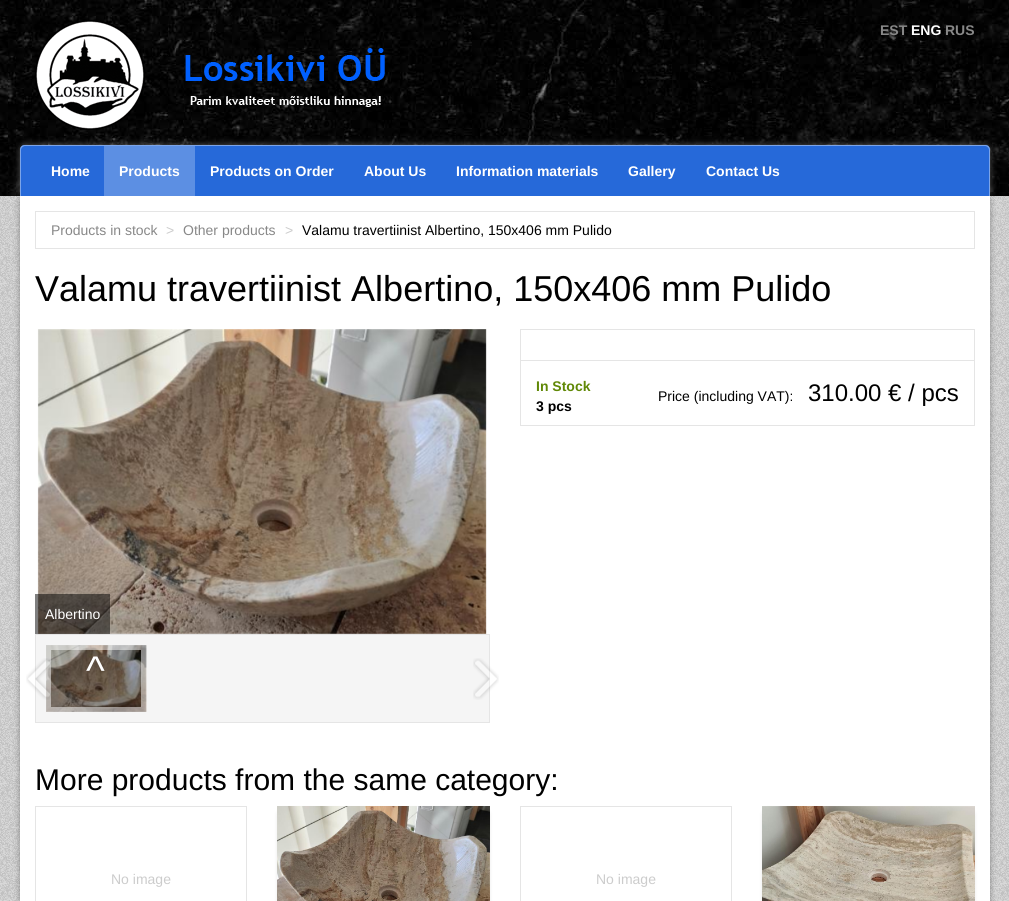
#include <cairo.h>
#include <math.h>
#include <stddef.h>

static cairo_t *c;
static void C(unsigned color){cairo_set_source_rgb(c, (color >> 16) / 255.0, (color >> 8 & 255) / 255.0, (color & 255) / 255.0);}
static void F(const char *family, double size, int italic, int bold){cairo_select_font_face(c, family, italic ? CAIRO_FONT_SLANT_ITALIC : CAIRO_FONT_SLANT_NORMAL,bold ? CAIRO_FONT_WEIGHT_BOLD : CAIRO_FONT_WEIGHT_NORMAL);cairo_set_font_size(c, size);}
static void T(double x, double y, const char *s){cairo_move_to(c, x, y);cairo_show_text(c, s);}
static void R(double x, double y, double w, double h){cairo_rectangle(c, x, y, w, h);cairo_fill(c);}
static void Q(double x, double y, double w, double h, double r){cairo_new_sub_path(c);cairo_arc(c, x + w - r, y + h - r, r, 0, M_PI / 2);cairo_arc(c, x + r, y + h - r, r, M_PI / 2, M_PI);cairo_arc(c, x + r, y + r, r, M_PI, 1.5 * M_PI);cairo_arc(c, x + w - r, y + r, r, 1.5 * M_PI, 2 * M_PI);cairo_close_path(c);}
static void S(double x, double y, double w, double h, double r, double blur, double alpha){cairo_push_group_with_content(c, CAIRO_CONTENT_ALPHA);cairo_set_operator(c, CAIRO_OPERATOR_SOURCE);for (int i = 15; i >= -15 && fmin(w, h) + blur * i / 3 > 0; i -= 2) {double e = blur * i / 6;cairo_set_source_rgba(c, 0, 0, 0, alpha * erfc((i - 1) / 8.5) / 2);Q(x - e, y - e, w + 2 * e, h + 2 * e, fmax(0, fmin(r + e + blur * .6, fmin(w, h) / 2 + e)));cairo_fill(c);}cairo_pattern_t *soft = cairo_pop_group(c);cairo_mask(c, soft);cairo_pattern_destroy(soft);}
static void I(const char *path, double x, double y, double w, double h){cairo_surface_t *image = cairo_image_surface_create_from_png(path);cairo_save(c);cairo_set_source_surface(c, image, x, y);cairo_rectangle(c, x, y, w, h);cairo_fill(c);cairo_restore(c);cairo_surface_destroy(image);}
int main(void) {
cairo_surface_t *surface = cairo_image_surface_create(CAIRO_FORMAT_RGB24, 1009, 901);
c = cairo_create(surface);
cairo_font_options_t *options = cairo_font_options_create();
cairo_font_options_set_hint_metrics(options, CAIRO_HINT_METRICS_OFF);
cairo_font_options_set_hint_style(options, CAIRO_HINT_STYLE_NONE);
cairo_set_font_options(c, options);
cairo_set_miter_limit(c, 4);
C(0xffffff);
cairo_paint(c);
I("1.png",0,0,1009,196);
I("2.png",35,20,350,110);
F("Liberation Sans",14,0,1);
C(0x888888);
T(880,35,"EST");
C(0xffffff);
T(911,35,"ENG");
C(0x888888);
T(945,35,"RUS");
C(0xffffff);
S(24,149,962,43,0,4.5,1);
I("3.png",0,196,1009,705);
C(0x000000);
S(24,200,962,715,0,4.5,1);
C(0x2669d9);
cairo_new_path(c);
cairo_move_to(c,25,145);
cairo_line_to(c,985,145);
cairo_curve_to(c,988,145,990,147,990,150);
cairo_line_to(c,990,196);
cairo_line_to(c,20,196);
cairo_line_to(c,20,150);
cairo_curve_to(c,20,147,22,145,25,145);
cairo_close_path(c);
cairo_fill(c);
C(0x7ba4e8);
cairo_set_fill_rule(c,CAIRO_FILL_RULE_EVEN_ODD);
cairo_new_path(c);
cairo_move_to(c,25,145);
cairo_line_to(c,985,145);
cairo_curve_to(c,988,145,990,147,990,150);
cairo_line_to(c,990,196);
cairo_line_to(c,20,196);
cairo_line_to(c,20,150);
cairo_curve_to(c,20,147,22,145,25,145);
cairo_close_path(c);
cairo_move_to(c,25,146);
cairo_line_to(c,985,146);
cairo_curve_to(c,987,146,989,148,989,150);
cairo_line_to(c,989,196);
cairo_line_to(c,21,196);
cairo_line_to(c,21,150);
cairo_curve_to(c,21,148,23,146,25,146);
cairo_close_path(c);
cairo_fill(c);
C(0xffffff);
T(51,176,"Home");
C(0x5c8fe3);
R(104,146,91,50);
C(0xffffff);
T(119,176,"Products");
T(210,176,"Products on Order");
T(364,176,"About Us");
T(456,176,"Information materials");
T(628,176,"Gallery");
T(706,176,"Contact Us");
R(20,196,970,705);
cairo_rectangle(c,35.5,211.5,939,37);
C(0xe5e5e5);
cairo_set_line_width(c,1);
cairo_stroke(c);
F("Liberation Sans",14,0,0);
C(0x888888);
T(51,235,"Products in stock");
C(0xcccccc);
T(166,235,">");
C(0x888888);
T(183,235,"Other products");
C(0xcccccc);
T(285,235,">");
C(0x000000);
T(302,235,"Valamu travertiinist Albertino, 150x406 mm Pulido");
F("Liberation Sans",36,0,0);
T(35,301,"Valamu travertiinist Albertino, 150x406 mm Pulido");
cairo_rectangle(c,520.5,329.5,454,96);
C(0xe5e5e5);
cairo_stroke(c);
R(521,360,453,1);
F("Liberation Sans",14,0,1);
C(0x608806);
T(536,391,"In Stock");
C(0x000000);
T(536,411,"3 pcs");
F("Liberation Sans",14,0,0);
T(658,401,"Price (including VAT):");
F("Liberation Sans",24,0,0);
T(808,401,"310.00 € / pcs");
I("4.png",37,329,450,305);
cairo_set_source_rgba(c,0,0,0,0.5);
R(35,594,75,40);
F("Liberation Sans",14,0,0);
C(0xffffff);
T(45,619,"Albertino");
C(0xf5f5f5);
cairo_rectangle(c,35.5,634.5,454,88);
cairo_fill_preserve(c);
C(0xe5e5e5);
cairo_stroke(c);
I("6.png",46,645,101,67);
cairo_set_source_rgba(c,0,0,0,0.25);
R(46,645,100,67);
cairo_rectangle(c,48.5,647.5,95,62);
cairo_set_source_rgba(c,1,1,1,0.5);
cairo_set_line_width(c,5);
cairo_stroke(c);
I("5.png",26,658,26,42);
F("Liberation Sans",40,0,0);
C(0xffffff);
T(86,684,"^");
I("7.png",473,658,26,42);
F("Liberation Sans",30,0,0);
C(0x000000);
T(35,790,"More products from the same category:");
cairo_rectangle(c,35.5,806.5,211,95);
C(0xe5e5e5);
cairo_set_line_width(c,1);
cairo_stroke(c);
F("Liberation Sans",14,0,0);
C(0xcccccc);
T(111,884,"No image");
C(0x000000);
S(283,814,201,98,0,3.5,1);
I("8.png",277,806,213,95);
cairo_rectangle(c,520.5,806.5,211,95);
C(0xe5e5e5);
cairo_stroke(c);
C(0xcccccc);
T(596,884,"No image");
C(0x000000);
S(768,814,201,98,0,3.5,1);
I("9.png",762,806,213,95);
cairo_surface_write_to_png(surface, "o.png");
cairo_font_options_destroy(options);
cairo_destroy(c);
cairo_surface_destroy(surface);
return 0;
}
